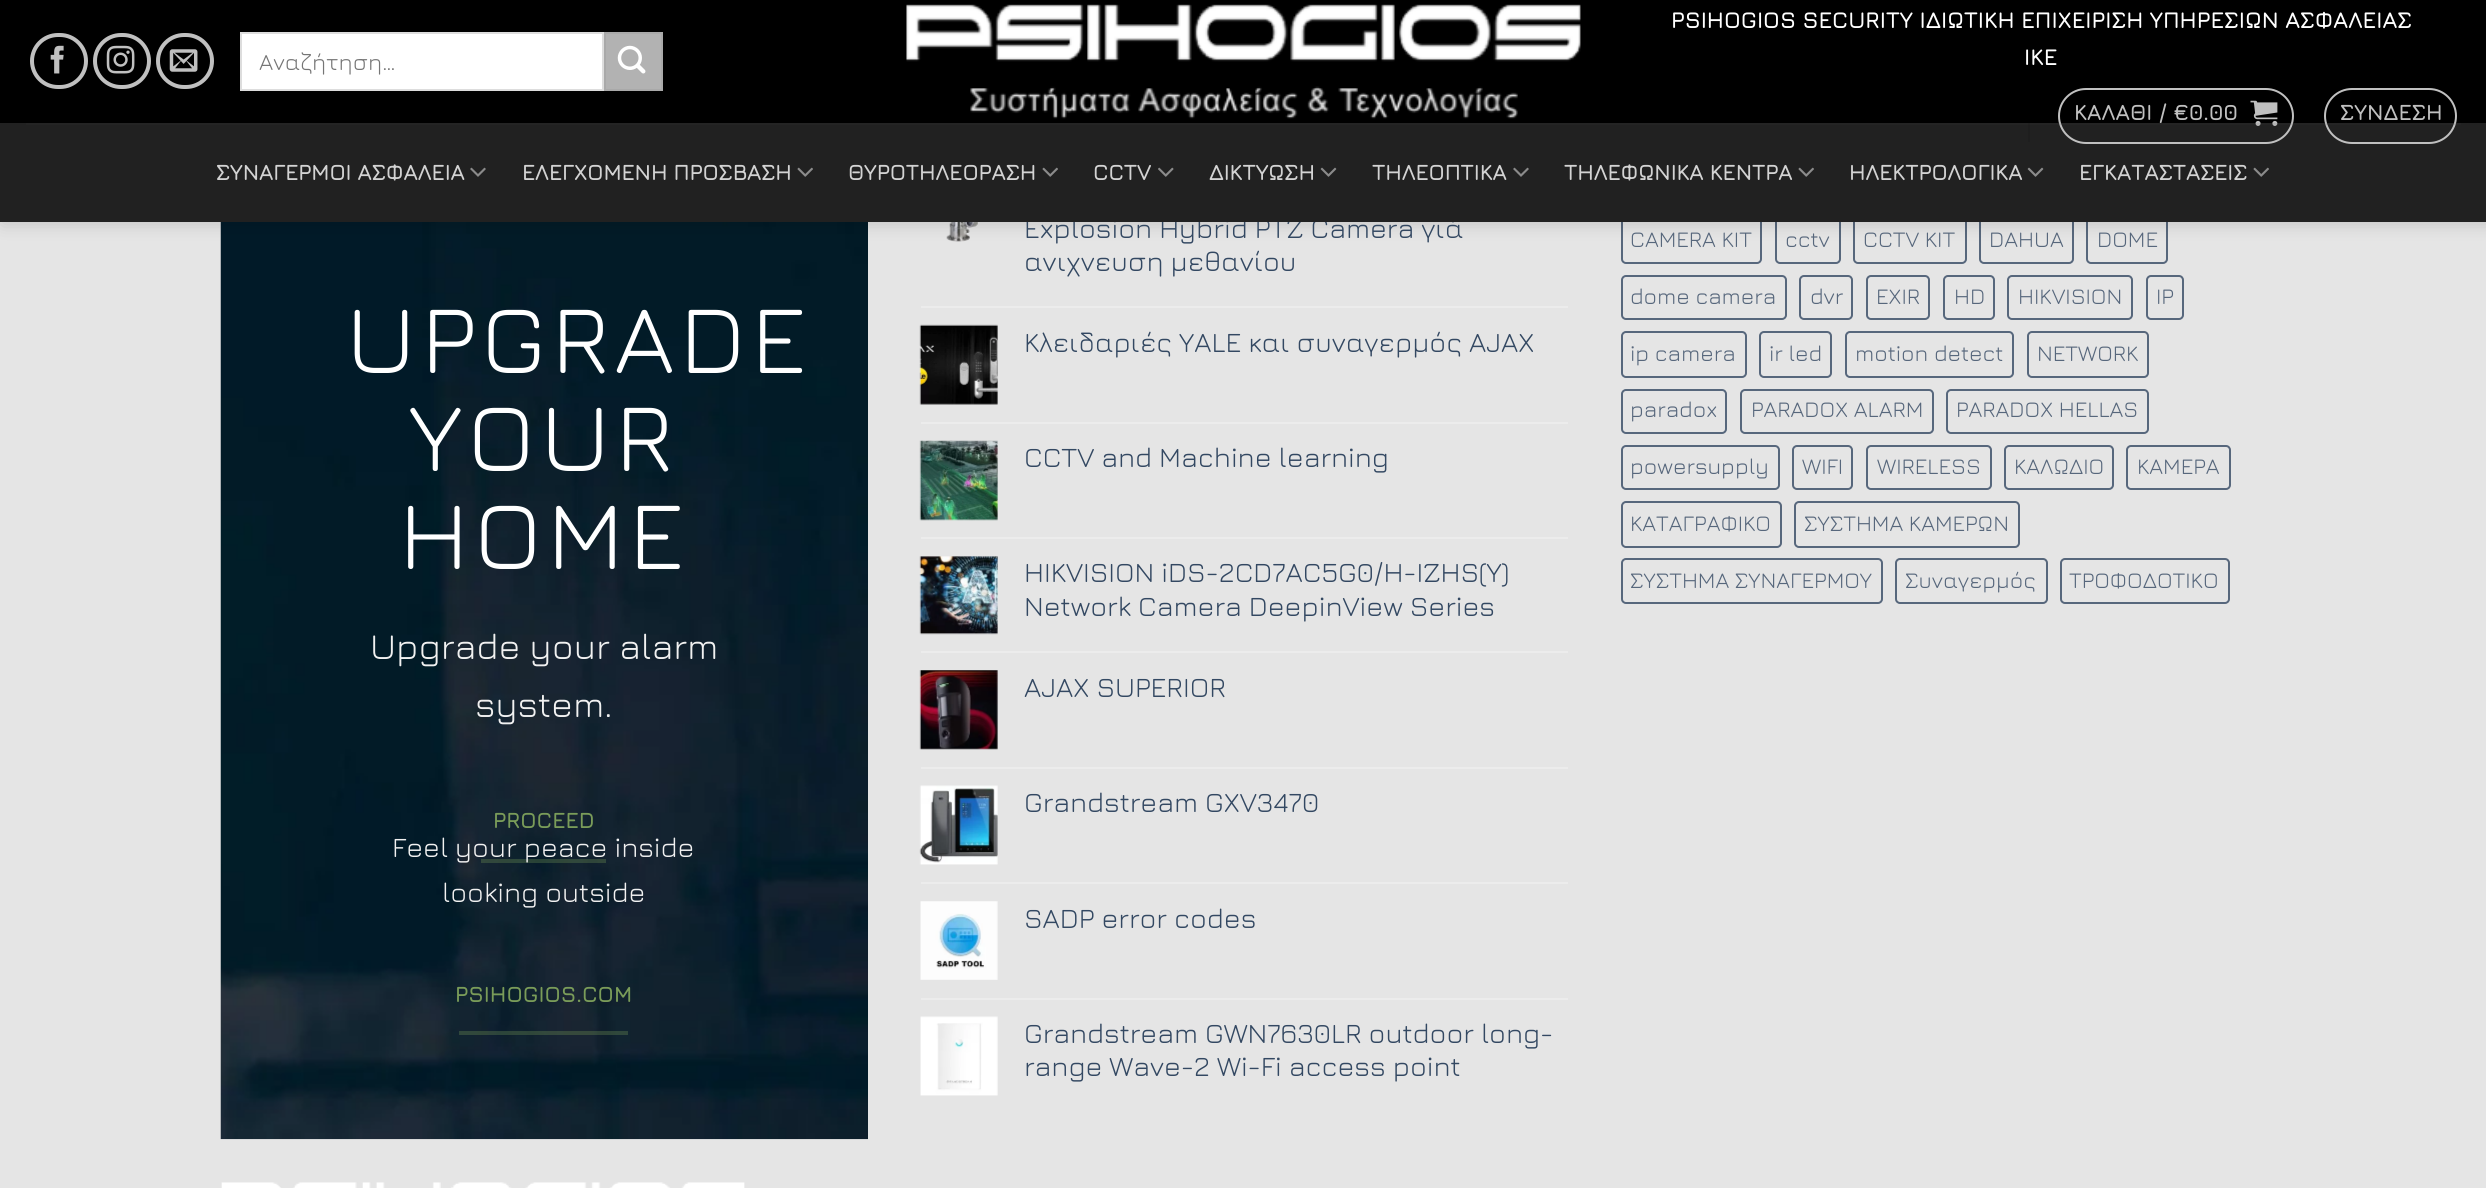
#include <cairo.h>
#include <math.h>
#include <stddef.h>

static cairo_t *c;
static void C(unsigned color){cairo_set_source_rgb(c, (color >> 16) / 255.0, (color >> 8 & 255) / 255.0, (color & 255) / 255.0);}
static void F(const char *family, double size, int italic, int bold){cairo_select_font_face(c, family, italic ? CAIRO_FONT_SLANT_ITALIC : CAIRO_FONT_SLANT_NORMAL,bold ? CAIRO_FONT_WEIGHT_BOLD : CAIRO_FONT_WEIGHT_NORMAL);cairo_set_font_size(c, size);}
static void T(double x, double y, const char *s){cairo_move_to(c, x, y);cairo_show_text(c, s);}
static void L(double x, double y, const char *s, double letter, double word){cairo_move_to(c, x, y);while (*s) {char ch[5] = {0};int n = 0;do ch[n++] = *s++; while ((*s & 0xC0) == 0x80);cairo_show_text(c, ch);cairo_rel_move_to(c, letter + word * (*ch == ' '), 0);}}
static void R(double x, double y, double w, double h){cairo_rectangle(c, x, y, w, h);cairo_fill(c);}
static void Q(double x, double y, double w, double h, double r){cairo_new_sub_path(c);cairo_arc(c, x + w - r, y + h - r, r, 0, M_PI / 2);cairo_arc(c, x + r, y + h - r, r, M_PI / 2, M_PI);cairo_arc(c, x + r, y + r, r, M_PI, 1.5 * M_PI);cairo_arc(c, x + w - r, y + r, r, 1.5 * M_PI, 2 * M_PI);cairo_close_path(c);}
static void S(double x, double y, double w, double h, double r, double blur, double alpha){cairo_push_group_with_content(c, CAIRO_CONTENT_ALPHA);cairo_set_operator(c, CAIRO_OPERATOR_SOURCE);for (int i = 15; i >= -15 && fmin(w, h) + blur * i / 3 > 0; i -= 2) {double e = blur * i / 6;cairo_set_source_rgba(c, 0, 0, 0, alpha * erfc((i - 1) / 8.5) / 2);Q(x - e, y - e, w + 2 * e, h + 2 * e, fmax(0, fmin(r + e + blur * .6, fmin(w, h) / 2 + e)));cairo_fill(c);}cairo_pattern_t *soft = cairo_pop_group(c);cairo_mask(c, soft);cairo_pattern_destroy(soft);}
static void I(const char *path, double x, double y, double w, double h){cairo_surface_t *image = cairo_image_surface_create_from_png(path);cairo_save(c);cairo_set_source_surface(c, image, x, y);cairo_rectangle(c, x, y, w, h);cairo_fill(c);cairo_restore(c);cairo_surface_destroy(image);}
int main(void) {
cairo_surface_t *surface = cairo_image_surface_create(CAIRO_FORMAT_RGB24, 2486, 1188);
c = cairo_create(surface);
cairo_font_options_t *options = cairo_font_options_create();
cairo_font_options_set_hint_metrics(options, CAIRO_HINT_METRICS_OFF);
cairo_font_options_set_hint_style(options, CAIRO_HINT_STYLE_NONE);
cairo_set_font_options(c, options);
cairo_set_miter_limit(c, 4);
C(0xe5e5e5);
cairo_paint(c);
I("11.png",220,222,648,918);
I("12.png",946,222,32,20);
Q(1622,218,139,45,4);
C(0x57677c);
cairo_stroke(c);
Q(1776,218,64,45,4);
cairo_stroke(c);
Q(1854,218,112,45,4);
cairo_stroke(c);
Q(1980,218,93,45,4);
cairo_stroke(c);
Q(2087,218,80,45,4);
cairo_stroke(c);
C(0x000000);
S(2,2,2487,222,0,9,.15);
C(0x000000);
R(0,0,2486,123);
Q(32,35,54,52,26);
C(0xc0c0c0);
cairo_set_line_width(c,4);
cairo_stroke(c);
I("1.png",50,45,14,29);
Q(95,35,54,52,26);
cairo_stroke(c);
I("2.png",106,45,29,29);
Q(158,35,54,52,26);
cairo_stroke(c);
I("3.png",169,49,29,23);
C(0xffffff);
cairo_rectangle(c,241,33,362,57);
cairo_fill_preserve(c);
C(0xdddddd);
cairo_set_line_width(c,2);
cairo_stroke(c);
F("Jura Light",23.1,0,0);
C(0x757575);
T(259,70,"Αναζήτηση…");
C(0xb2b2b2);
cairo_rectangle(c,605,33,57,57);
cairo_fill_preserve(c);
C(0xa9a9a9);
cairo_stroke(c);
I("4.png",617,45,29,29);
I("5.png",906,4,675,115);
F("Jura",23.1,0,1);
C(0xffffff);
L(1671,28,"PSIHOGIOS SECURITY ΙΔΙΩΤΙΚΗ ΕΠΙΧΕΙΡΙΣΗ ΥΠΗΡΕΣΙΩΝ ΑΣΦΑΛΕΙΑΣ",.7,0);
L(2024,65,"ΙΚΕ",.7,0);
F("Jura Light",28,0,0);
C(0x334862);
T(1024,238,"Explosion Hybrid PTZ Camera γιά");
C(0x212121);
R(0,123,2486,99);
Q(2059,89,234,54,27);
C(0xc0c0c0);
cairo_stroke(c);
F("Jura",22.4,0,1);
L(2074,120,"ΚΑΛΑΘΙ / €0.00",.7,0);
I("6.png",2250,100,28,26);
Q(2325,89,131,54,27);
cairo_stroke(c);
L(2340,120,"ΣΥΝΔΕΣΗ",.7,0);
cairo_set_source_rgba(c,0,0,0,0.1);
R(2028,123,2,19);
cairo_set_source_rgba(c,0.259,0.259,0.259,0.1);
R(26,123,2435,2);
C(0xd3d3d3);
L(216,180,"ΣΥΝΑΓΕΡΜΟΙ ΑΣΦΑΛΕΙΑ",.5,0);
I("7.png",470,167,16,10);
L(522,180,"EΛΕΓΧΟΜΕΝΗ ΠΡΟΣΒΑΣΗ",.5,0);
I("8.png",797,167,16,10);
L(848,180,"ΘΥΡΟΤΗΛΕΟΡΑΣΗ",.5,0);
I("8.png",1042,167,16,10);
L(1093,180,"CCTV",.5,0);
I("9.png",1158,167,16,10);
L(1209,180,"ΔΙΚΤΥΩΣΗ",.5,0);
I("10.png",1320,167,17,10);
L(1372,180,"ΤΗΛΕΟΠΤΙΚΑ",.5,0);
I("7.png",1513,167,16,10);
L(1564,180,"ΤΗΛΕΦΩΝΙΚΑ ΚΕΝΤΡΑ",.5,0);
I("8.png",1798,167,16,10);
L(1849,180,"ΗΛΕΚΤΡΟΛΟΓΙΚΑ",.5,0);
I("10.png",2027,167,17,10);
L(2079,180,"EΓΚΑΤΑΣΤΑΣΕΙΣ",.5,0);
I("8.png",2253,167,16,10);
F("Jura Light",98,0,0);
C(0xffffff);
L(346,373,"UPGRADE",5,0);
L(409,471,"YOUR",5,0);
L(399,569,"HOME",5,0);
F("Jura Light",36.5,0,0);
C(0xf1f1f1);
T(370,659,"Upgrade your alarm");
T(475,717,"system.");
F("Jura",22.4,0,1);
C(0x7a9c59);
L(493,828,"PROCEED",.7,0);
cairo_set_source_rgba(c,0.478,0.612,0.349,0.3);
R(481,859,125,4);
F("Jura Light",28,0,0);
C(0xf1f1f1);
T(392,857,"Feel your peace inside");
T(442,902,"looking outside");
F("Jura",22.4,0,1);
C(0x7a9c59);
L(455,1002,"PSIHOGIOS.COM",.7,0);
cairo_set_source_rgba(c,0.478,0.612,0.349,0.3);
R(459,1031,169,4);
F("Jura Light",28,0,0);
C(0x334862);
T(1024,271,"ανιχνευση μεθανίου");
C(0xececec);
R(921,306,647,2);
I("13.png",919,324,79,81);
C(0x334862);
T(1024,352,"Kλειδαριές YALE και συναγερμός AJAX");
C(0xececec);
R(921,422,647,2);
I("14.png",919,440,79,81);
C(0x334862);
T(1024,467,"CCTV and Machine learning");
C(0xececec);
R(921,537,647,2);
I("15.png",919,556,79,79);
C(0x334862);
T(1024,582,"HIKVISION iDS-2CD7AC5G0/H-IZHS(Y)");
T(1024,616,"Network Camera DeepinView Series");
C(0xececec);
R(921,651,647,2);
I("16.png",919,670,79,80);
C(0x334862);
T(1024,697,"AJAX SUPERIOR");
C(0xececec);
R(921,767,647,2);
I("17.png",919,785,79,80);
C(0x334862);
T(1024,812,"Grandstream GXV3470");
C(0xececec);
R(921,882,647,2);
I("18.png",920,901,78,79);
C(0x334862);
T(1024,928,"SADP error codes");
C(0xececec);
R(921,998,647,2);
I("19.png",920,1016,78,80);
C(0x334862);
T(1024,1043,"Grandstream GWN7630LR outdoor long-");
T(1024,1076,"range Wave-2 Wi-Fi access point");
F("Jura Light",22.4,0,0);
C(0x57677c);
T(1630,247,"CAMERA KIT");
T(1785,247,"cctv");
T(1863,247,"CCTV KIT");
T(1989,247,"DAHUA");
T(2097,247,"DOME");
Q(1622,276,164,43,4);
cairo_stroke(c);
T(1630,304,"dome camera");
Q(1800,276,52,43,4);
cairo_stroke(c);
T(1810,304,"dvr");
Q(1867,276,62,43,4);
cairo_stroke(c);
T(1876,304,"EXIR");
Q(1944,276,50,43,4);
cairo_stroke(c);
T(1954,304,"HD");
Q(2008,276,124,43,4);
cairo_stroke(c);
T(2018,304,"HIKVISION");
Q(2147,276,36,43,4);
cairo_stroke(c);
T(2156,304,"IP");
Q(1622,332,124,45,4);
cairo_stroke(c);
T(1630,361,"ip camera");
Q(1760,332,71,45,4);
cairo_stroke(c);
T(1769,361,"ir led");
Q(1846,332,167,45,4);
cairo_stroke(c);
T(1855,361,"motion detect");
Q(2028,332,120,45,4);
cairo_stroke(c);
T(2037,361,"NETWORK");
Q(1622,390,104,43,4);
cairo_stroke(c);
T(1630,417,"paradox");
Q(1741,390,192,43,4);
cairo_stroke(c);
T(1751,417,"PARADOX ALARM");
Q(1947,390,201,43,4);
cairo_stroke(c);
T(1956,417,"PARADOX HELLAS");
Q(1622,446,157,43,4);
cairo_stroke(c);
T(1630,474,"powersupply");
Q(1793,446,59,43,4);
cairo_stroke(c);
T(1802,474,"WIFI");
Q(1867,446,124,43,4);
cairo_stroke(c);
T(1877,474,"WIRELESS");
Q(2005,446,108,43,4);
cairo_stroke(c);
T(2014,474,"ΚΑΛΩΔΙΟ");
Q(2127,446,103,43,4);
cairo_stroke(c);
T(2137,474,"ΚΑΜΕΡΑ");
Q(1622,502,159,45,4);
cairo_stroke(c);
T(1630,531,"ΚΑΤΑΓΡΑΦΙΚΟ");
Q(1795,502,224,45,4);
cairo_stroke(c);
T(1804,531,"ΣΥΣΤΗΜΑ ΚΑΜΕΡΩΝ");
Q(1622,559,260,44,4);
cairo_stroke(c);
T(1630,588,"ΣΥΣΤΗΜΑ ΣΥΝΑΓΕΡΜΟΥ");
Q(1896,559,151,44,4);
cairo_stroke(c);
T(1905,588,"Συναγερμός");
Q(2061,559,168,44,4);
cairo_stroke(c);
T(2069,588,"ΤΡΟΦΟΔΟΤΙΚΟ");
I("20.png",221,1182,524,6);
cairo_surface_write_to_png(surface, "o.png");
cairo_font_options_destroy(options);
cairo_destroy(c);
cairo_surface_destroy(surface);
return 0;
}
